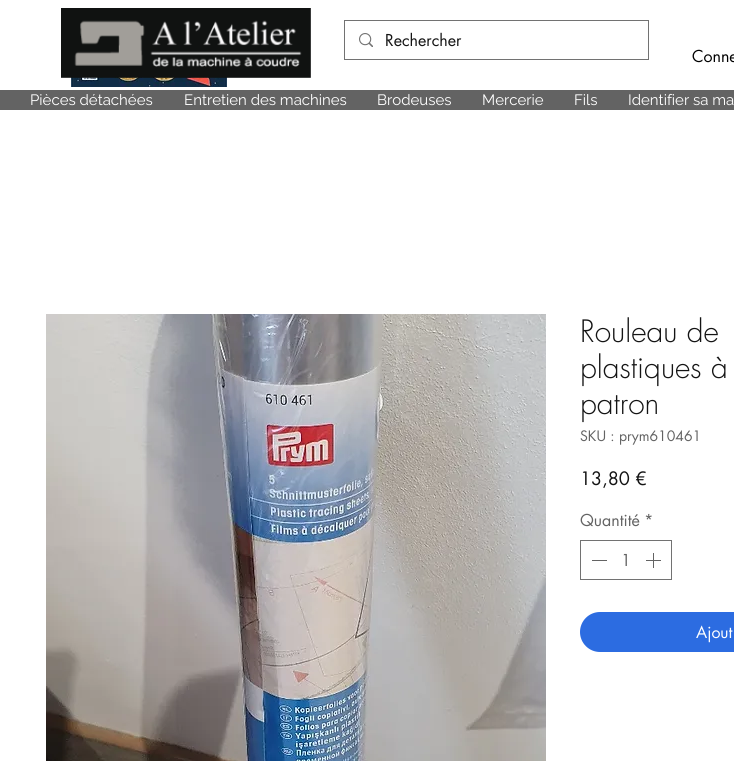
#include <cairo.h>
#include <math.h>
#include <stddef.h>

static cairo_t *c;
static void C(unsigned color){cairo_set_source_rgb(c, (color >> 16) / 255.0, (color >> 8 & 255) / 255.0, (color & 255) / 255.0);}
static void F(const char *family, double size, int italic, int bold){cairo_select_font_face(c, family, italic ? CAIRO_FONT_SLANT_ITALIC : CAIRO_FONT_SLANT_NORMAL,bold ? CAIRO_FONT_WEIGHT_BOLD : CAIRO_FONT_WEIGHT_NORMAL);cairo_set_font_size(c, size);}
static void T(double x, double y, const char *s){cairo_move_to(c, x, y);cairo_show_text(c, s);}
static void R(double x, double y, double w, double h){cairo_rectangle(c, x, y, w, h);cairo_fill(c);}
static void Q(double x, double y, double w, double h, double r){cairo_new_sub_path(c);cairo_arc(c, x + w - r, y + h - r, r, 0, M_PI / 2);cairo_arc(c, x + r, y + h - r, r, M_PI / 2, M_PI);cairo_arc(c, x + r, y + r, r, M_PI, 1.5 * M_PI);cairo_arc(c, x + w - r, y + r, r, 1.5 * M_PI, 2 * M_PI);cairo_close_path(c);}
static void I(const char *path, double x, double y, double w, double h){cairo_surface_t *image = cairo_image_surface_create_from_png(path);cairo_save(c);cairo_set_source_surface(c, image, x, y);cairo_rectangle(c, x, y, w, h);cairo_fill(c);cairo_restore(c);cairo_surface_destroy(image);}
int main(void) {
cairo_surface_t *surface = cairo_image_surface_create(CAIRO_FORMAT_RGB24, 734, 761);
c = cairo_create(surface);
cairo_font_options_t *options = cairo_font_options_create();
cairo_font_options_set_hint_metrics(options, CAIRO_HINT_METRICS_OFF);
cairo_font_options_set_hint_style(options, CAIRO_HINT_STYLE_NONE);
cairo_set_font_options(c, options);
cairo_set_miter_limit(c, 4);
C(0xffffff);
cairo_paint(c);
I("3.png",71,77,156,10);
I("1.png",61,8,250,70);
cairo_rectangle(c,344.5,20.5,304,39);
C(0x727272);
cairo_set_line_width(c,1);
cairo_stroke(c);
I("2.png",359,33,14,14);
F("futura",16,0,0);
C(0x141414);
T(385,46,"Rechercher");
C(0x000000);
T(692,62,"Conne");
C(0x636363);
R(0,90,734,20);
F("Raleway",15,0,0);
C(0xffffff);
T(30,105,"Pièces détachées");
T(184,105,"Entretien des machines");
T(377,105,"Brodeuses");
T(482,105,"Mercerie");
T(574,105,"Fils");
T(628,105,"Identifier sa ma");
I("4.png",46,314,500,447);
F("futura Light",30,0,0);
C(0x141414);
T(580,342,"Rouleau de");
T(580,378,"plastiques à");
T(580,414,"patron");
F("futura",14,0,0);
C(0x636363);
T(580,441,"SKU : prym610461");
F("futura",18,0,0);
C(0x141414);
T(580,485,"13,80 €");
F("futura",16,0,0);
C(0x636363);
T(580,526,"Quantité");
T(644,526,"*");
cairo_rectangle(c,580.5,540.5,91,39);
C(0x727272);
cairo_stroke(c);
C(0x636363);
R(592,560,15,1);
T(621,566,"1");
I("5.png",646,553,15,15);
C(0x2c6ce1);
Q(580,612,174,40,20);
cairo_fill(c);
C(0xffffff);
T(696,638,"Ajout");
cairo_surface_write_to_png(surface, "o.png");
cairo_font_options_destroy(options);
cairo_destroy(c);
cairo_surface_destroy(surface);
return 0;
}
